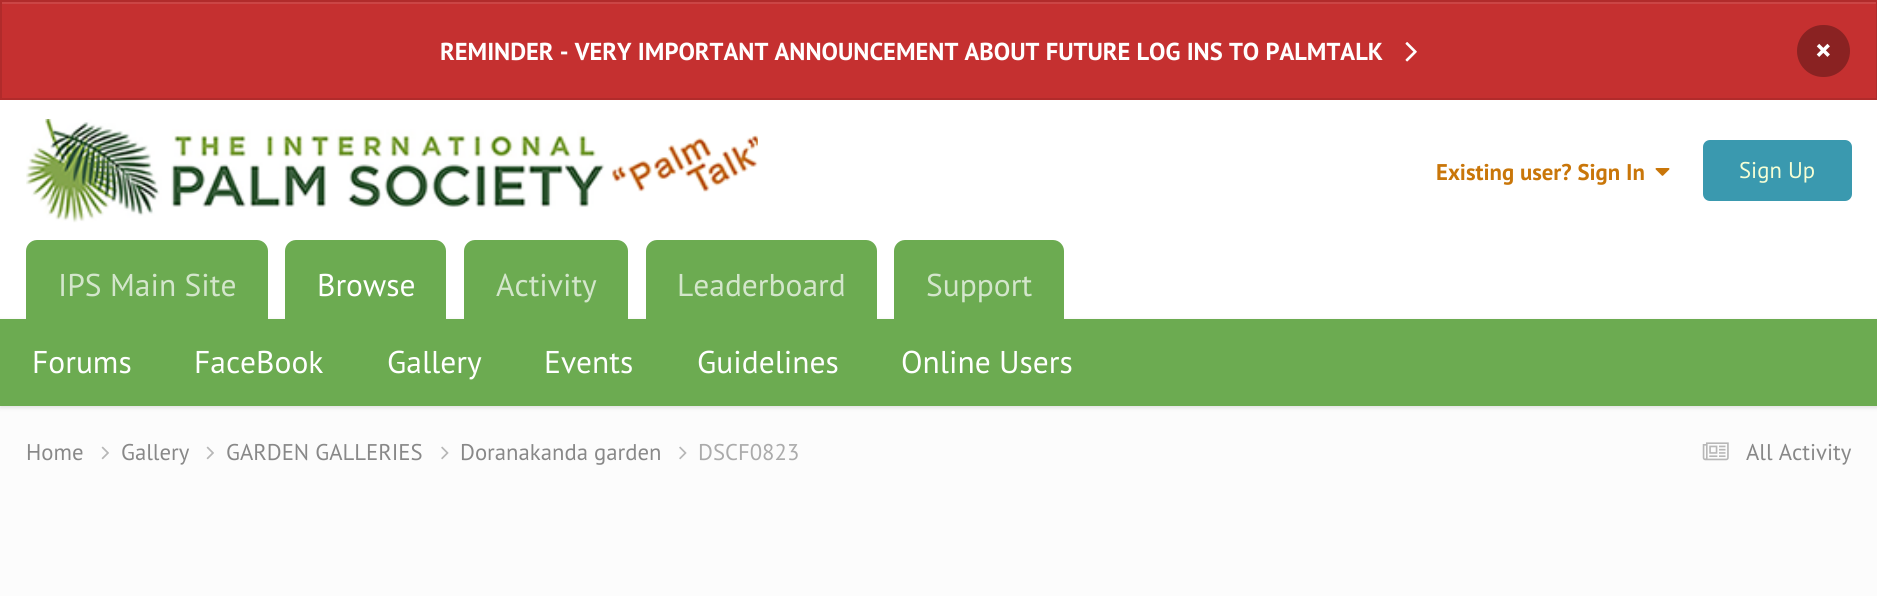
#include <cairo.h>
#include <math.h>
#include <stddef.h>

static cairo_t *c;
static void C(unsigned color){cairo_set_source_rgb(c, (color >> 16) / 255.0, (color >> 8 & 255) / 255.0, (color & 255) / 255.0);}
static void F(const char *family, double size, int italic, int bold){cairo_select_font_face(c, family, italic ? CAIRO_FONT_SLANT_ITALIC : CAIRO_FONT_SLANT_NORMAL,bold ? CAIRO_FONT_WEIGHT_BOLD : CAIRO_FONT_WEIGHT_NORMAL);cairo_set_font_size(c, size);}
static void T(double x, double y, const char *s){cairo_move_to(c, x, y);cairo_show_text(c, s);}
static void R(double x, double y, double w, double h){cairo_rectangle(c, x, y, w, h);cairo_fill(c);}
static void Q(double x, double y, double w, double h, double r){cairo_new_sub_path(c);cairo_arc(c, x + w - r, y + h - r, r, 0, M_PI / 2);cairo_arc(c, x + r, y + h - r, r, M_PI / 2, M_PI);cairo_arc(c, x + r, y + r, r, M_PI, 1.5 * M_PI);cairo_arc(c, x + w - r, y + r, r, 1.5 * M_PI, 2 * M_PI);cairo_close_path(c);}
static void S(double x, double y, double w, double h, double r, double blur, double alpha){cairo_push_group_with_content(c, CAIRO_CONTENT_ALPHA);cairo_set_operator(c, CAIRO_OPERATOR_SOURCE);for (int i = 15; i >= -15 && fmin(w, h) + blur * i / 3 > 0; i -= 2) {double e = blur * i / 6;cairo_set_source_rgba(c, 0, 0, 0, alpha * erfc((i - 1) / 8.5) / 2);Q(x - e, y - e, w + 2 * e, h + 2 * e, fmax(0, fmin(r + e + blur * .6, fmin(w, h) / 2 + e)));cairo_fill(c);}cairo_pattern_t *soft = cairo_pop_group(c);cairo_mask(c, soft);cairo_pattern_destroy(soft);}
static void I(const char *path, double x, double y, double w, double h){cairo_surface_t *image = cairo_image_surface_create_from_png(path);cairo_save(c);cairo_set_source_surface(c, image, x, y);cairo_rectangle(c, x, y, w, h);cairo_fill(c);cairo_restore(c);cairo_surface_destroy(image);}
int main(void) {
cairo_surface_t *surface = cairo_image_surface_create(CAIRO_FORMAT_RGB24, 1877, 596);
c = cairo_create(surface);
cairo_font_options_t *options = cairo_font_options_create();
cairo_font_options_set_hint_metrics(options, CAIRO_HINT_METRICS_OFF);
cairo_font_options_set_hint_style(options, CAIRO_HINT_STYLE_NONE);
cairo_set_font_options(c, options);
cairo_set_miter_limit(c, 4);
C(0xfcfcfc);
cairo_paint(c);
C(0xc53030);
R(2,4,1874,94);
C(0xcb4545);
R(2,2,1874,2);
cairo_rectangle(c,1,1,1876,98);
C(0xb12b2b);
cairo_stroke(c);
F("PT Sans",24.5,0,1);
C(0xffffff);
T(440,60,"REMINDER - VERY IMPORTANT ANNOUNCEMENT ABOUT FUTURE LOG INS TO PALMTALK");
I("1.png",1405,42,12,20);
C(0x8a2222);
Q(1797,25,53,52,26);
cairo_fill(c);
F("PT Sans",31.5,0,1);
C(0xffffff);
T(1815,61,"×");
R(0,100,1877,219);
I("2.png",26,119,732,104);
F("PT Sans",22.75,0,1);
C(0xc97609);
T(1436,180,"Existing user? Sign In");
I("3.png",1655,168,15,8);
C(0x3a99af);
Q(1703,140,149,61,7);
cairo_fill(c);
F("PT Sans",22.75,0,0);
C(0xf6ffd5);
T(1739,178,"Sign Up");
C(0x000000);
S(0,320,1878,88,0,2,.1);
C(0x6cab51);
R(0,319,1877,87);
cairo_new_path(c);
cairo_move_to(c,296,240);
cairo_line_to(c,435,240);
cairo_curve_to(c,441,240,446,245,446,251);
cairo_line_to(c,446,331);
cairo_line_to(c,285,331);
cairo_line_to(c,285,251);
cairo_curve_to(c,285,245,290,240,296,240);
cairo_close_path(c);
cairo_fill(c);
F("PT Sans",31.5,0,0);
C(0xffffff);
T(317,296,"Browse");
T(32,373,"Forums");
T(194,373,"FaceBook");
T(387,373,"Gallery");
T(544,373,"Events");
T(697,373,"Guidelines");
T(901,373,"Online Users");
C(0x6cab51);
cairo_new_path(c);
cairo_move_to(c,37,240);
cairo_line_to(c,257,240);
cairo_curve_to(c,263,240,268,245,268,251);
cairo_line_to(c,268,331);
cairo_line_to(c,26,331);
cairo_line_to(c,26,251);
cairo_curve_to(c,26,245,31,240,37,240);
cairo_close_path(c);
cairo_fill(c);
C(0xd3e6cb);
T(58,296,"IPS Main Site");
C(0x6cab51);
cairo_new_path(c);
cairo_move_to(c,475,240);
cairo_line_to(c,617,240);
cairo_curve_to(c,623,240,628,245,628,251);
cairo_line_to(c,628,331);
cairo_line_to(c,464,331);
cairo_line_to(c,464,251);
cairo_curve_to(c,464,245,469,240,475,240);
cairo_close_path(c);
cairo_fill(c);
C(0xd3e6cb);
T(496,296,"Activity");
C(0x6cab51);
cairo_new_path(c);
cairo_move_to(c,657,240);
cairo_line_to(c,866,240);
cairo_curve_to(c,872,240,877,245,877,251);
cairo_line_to(c,877,331);
cairo_line_to(c,646,331);
cairo_line_to(c,646,251);
cairo_curve_to(c,646,245,651,240,657,240);
cairo_close_path(c);
cairo_fill(c);
C(0xd3e6cb);
T(677,296,"Leaderboard");
C(0x6cab51);
cairo_new_path(c);
cairo_move_to(c,905,240);
cairo_line_to(c,1053,240);
cairo_curve_to(c,1059,240,1064,245,1064,251);
cairo_line_to(c,1064,331);
cairo_line_to(c,894,331);
cairo_line_to(c,894,251);
cairo_curve_to(c,894,245,899,240,905,240);
cairo_close_path(c);
cairo_fill(c);
C(0xd3e6cb);
T(926,296,"Support");
F("PT Sans",22.75,0,0);
C(0x888888);
T(26,460,"Home");
I("4.png",101,446,8,14);
T(121,460,"Gallery");
I("4.png",206,446,8,14);
T(226,460,"GARDEN GALLERIES");
I("5.png",441,446,8,14);
T(460,460,"Doranakanda garden");
I("5.png",679,446,8,14);
C(0xababab);
T(698,460,"DSCF0823");
I("6.png",1702,442,27,19);
C(0x888888);
T(1746,460,"All Activity");
cairo_surface_write_to_png(surface, "o.png");
cairo_font_options_destroy(options);
cairo_destroy(c);
cairo_surface_destroy(surface);
return 0;
}
